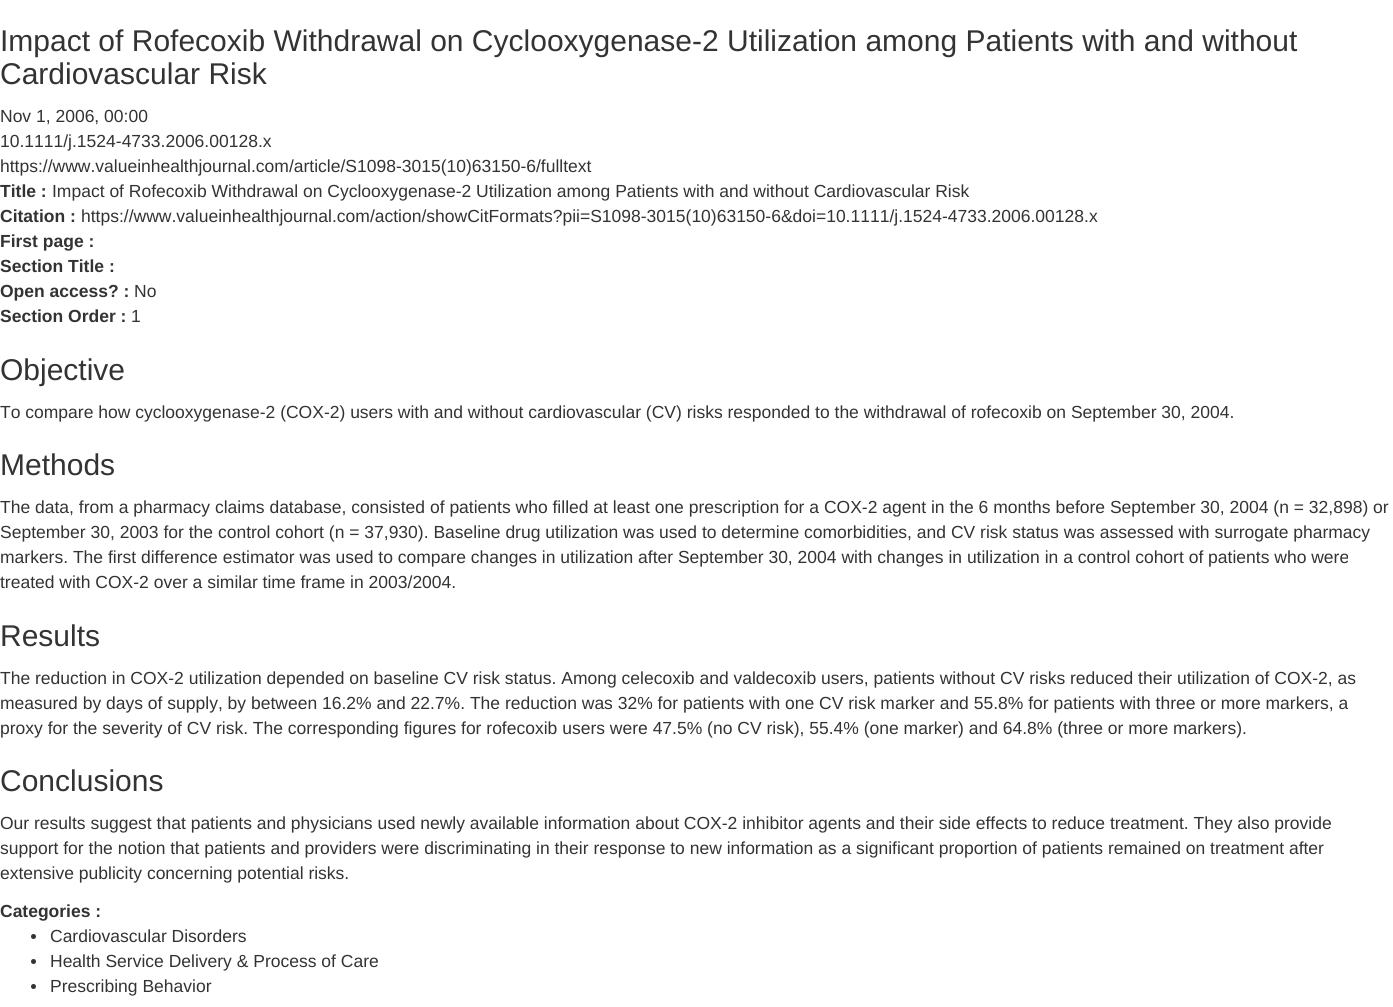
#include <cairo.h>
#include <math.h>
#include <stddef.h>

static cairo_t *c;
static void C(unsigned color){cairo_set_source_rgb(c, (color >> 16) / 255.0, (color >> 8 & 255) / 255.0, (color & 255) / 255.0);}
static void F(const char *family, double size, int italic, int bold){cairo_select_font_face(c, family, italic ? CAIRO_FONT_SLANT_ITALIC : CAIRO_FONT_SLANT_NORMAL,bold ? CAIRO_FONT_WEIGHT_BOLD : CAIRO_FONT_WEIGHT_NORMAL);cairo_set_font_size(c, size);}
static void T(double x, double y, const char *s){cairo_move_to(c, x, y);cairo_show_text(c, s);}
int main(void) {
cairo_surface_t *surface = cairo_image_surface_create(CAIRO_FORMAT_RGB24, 1393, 1007);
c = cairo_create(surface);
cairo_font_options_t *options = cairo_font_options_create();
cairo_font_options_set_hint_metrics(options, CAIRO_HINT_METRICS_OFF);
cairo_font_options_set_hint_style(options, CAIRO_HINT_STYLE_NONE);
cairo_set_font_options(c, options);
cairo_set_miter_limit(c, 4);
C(0xffffff);
cairo_paint(c);
F("Liberation Sans",30,0,0);
C(0x333333);
T(0,51,"Impact of Rofecoxib Withdrawal on Cyclooxygenase-2 Utilization among Patients with and without");
T(0,84,"Cardiovascular Risk");
F("Liberation Sans",17.5,0,0);
T(0,122,"Nov 1, 2006, 00:00");
T(0,147,"10.1111/j.1524-4733.2006.00128.x");
T(0,172,"https://www.valueinhealthjournal.com/article/S1098-3015(10)63150-6/fulltext");
F("Liberation Sans",17.5,0,1);
T(0,197,"Title :");
F("Liberation Sans",17.5,0,0);
T(52,197,"Impact of Rofecoxib Withdrawal on Cyclooxygenase-2 Utilization among Patients with and without Cardiovascular Risk");
F("Liberation Sans",17.5,0,1);
T(0,222,"Citation :");
F("Liberation Sans",17.5,0,0);
T(81,222,"https://www.valueinhealthjournal.com/action/showCitFormats?pii=S1098-3015(10)63150-6&doi=10.1111/j.1524-4733.2006.00128.x");
F("Liberation Sans",17.5,0,1);
T(0,247,"First page :");
T(0,272,"Section Title :");
T(0,297,"Open access? :");
F("Liberation Sans",17.5,0,0);
T(134,297,"No");
F("Liberation Sans",17.5,0,1);
T(0,322,"Section Order :");
F("Liberation Sans",17.5,0,0);
T(131,322,"1");
F("Liberation Sans",30,0,0);
T(0,380,"Objective");
F("Liberation Sans",17.5,0,0);
T(0,418,"To compare how cyclooxygenase-2 (COX-2) users with and without cardiovascular (CV) risks responded to the withdrawal of rofecoxib on September 30, 2004.");
F("Liberation Sans",30,0,0);
T(0,475,"Methods");
F("Liberation Sans",17.5,0,0);
T(0,513,"The data, from a pharmacy claims database, consisted of patients who filled at least one prescription for a COX-2 agent in the 6 months before September 30, 2004 (n = 32,898) or");
T(0,538,"September 30, 2003 for the control cohort (n = 37,930). Baseline drug utilization was used to determine comorbidities, and CV risk status was assessed with surrogate pharmacy");
T(0,563,"markers. The first difference estimator was used to compare changes in utilization after September 30, 2004 with changes in utilization in a control cohort of patients who were");
T(0,588,"treated with COX-2 over a similar time frame in 2003/2004.");
F("Liberation Sans",30,0,0);
T(0,646,"Results");
F("Liberation Sans",17.5,0,0);
T(0,684,"The reduction in COX-2 utilization depended on baseline CV risk status. Among celecoxib and valdecoxib users, patients without CV risks reduced their utilization of COX-2, as");
T(0,709,"measured by days of supply, by between 16.2% and 22.7%. The reduction was 32% for patients with one CV risk marker and 55.8% for patients with three or more markers, a");
T(0,734,"proxy for the severity of CV risk. The corresponding figures for rofecoxib users were 47.5% (no CV risk), 55.4% (one marker) and 64.8% (three or more markers).");
F("Liberation Sans",30,0,0);
T(0,791,"Conclusions");
F("Liberation Sans",17.5,0,0);
T(0,829,"Our results suggest that patients and physicians used newly available information about COX-2 inhibitor agents and their side effects to reduce treatment. They also provide");
T(0,854,"support for the notion that patients and providers were discriminating in their response to new information as a significant proportion of patients remained on treatment after");
T(0,879,"extensive publicity concerning potential risks.");
F("Liberation Sans",17.5,0,1);
T(0,917,"Categories :");
cairo_new_path(c);
cairo_arc(c,33.5,936.5,2.5,0,2 * M_PI);
cairo_fill(c);
F("Liberation Sans",17.5,0,0);
T(50,942,"Cardiovascular Disorders");
cairo_new_path(c);
cairo_arc(c,33.5,961.5,2.5,0,2 * M_PI);
cairo_fill(c);
T(50,967,"Health Service Delivery & Process of Care");
cairo_new_path(c);
cairo_arc(c,33.5,986.5,2.5,0,2 * M_PI);
cairo_fill(c);
T(50,992,"Prescribing Behavior");
cairo_surface_write_to_png(surface, "o.png");
cairo_font_options_destroy(options);
cairo_destroy(c);
cairo_surface_destroy(surface);
return 0;
}
